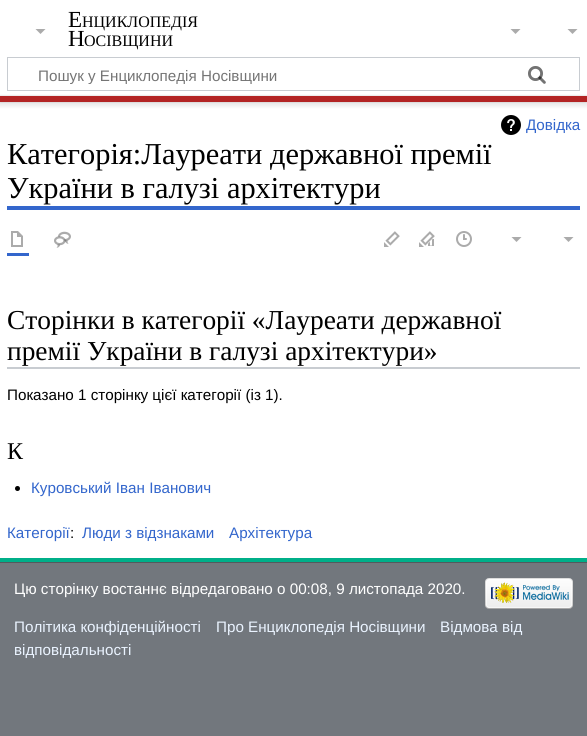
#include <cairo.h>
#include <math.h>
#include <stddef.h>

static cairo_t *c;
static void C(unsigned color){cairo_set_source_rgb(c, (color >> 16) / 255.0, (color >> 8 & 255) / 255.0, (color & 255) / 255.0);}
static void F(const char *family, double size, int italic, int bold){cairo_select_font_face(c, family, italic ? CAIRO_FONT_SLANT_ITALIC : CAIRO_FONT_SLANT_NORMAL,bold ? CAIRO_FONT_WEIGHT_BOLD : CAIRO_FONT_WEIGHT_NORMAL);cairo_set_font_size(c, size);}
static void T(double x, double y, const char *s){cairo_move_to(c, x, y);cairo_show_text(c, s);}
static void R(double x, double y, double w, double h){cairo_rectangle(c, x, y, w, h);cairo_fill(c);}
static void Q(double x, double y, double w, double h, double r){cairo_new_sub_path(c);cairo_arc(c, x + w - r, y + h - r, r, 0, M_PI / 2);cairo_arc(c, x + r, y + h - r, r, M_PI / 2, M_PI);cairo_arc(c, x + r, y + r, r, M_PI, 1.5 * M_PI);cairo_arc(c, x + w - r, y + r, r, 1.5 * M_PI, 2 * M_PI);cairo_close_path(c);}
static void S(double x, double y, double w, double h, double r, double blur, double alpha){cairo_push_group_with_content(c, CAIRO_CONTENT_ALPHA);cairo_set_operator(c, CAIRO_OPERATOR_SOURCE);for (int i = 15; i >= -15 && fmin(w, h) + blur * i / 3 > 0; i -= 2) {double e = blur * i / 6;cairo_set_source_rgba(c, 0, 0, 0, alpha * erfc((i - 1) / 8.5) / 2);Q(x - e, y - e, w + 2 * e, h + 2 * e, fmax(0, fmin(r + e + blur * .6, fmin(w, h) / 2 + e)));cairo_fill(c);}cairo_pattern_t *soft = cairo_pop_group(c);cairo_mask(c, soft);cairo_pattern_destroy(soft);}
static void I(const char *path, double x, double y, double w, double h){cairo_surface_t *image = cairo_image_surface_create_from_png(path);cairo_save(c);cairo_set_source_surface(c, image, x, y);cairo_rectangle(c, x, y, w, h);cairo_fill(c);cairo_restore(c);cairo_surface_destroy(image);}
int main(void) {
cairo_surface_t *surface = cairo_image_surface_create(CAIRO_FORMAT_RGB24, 587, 736);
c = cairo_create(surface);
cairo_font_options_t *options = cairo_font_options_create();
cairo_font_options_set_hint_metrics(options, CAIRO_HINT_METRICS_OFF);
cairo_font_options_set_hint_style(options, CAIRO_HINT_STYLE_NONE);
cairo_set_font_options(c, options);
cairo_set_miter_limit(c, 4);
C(0x72777d);
cairo_paint(c);
C(0xffffff);
R(0,0,587,96);
F("Liberation Serif",23,0,0);
C(0x000000);
T(68,27,"Е");
F("Liberation Serif",16,0,0);
T(82,27,"НЦИКЛОПЕДІЯ");
F("Liberation Serif",23,0,0);
T(68,46,"Н");
F("Liberation Serif",16,0,0);
T(84,46,"ОСІВЩИНИ");
C(0xababab);
cairo_new_path(c);
cairo_move_to(c,577.5,29);
cairo_line_to(c,572.5,34);
cairo_line_to(c,567.5,29);
cairo_close_path(c);
cairo_fill(c);
cairo_rectangle(c,7.5,57.5,572,33);
C(0xc8ccd1);
cairo_set_line_width(c,1);
cairo_stroke(c);
I("1.png",528,66,18,18);
cairo_save(c);
cairo_rectangle(c,38,67,469,17);
cairo_clip(c);
F("Liberation Sans",15.2,0,0);
C(0x757575);
T(38,81,"Пошук у Енциклопедія Носівщини");
cairo_restore(c);
I("2.png",528,66,18,18);
C(0xffffff);
R(0,102,587,456);
C(0x000000);
S(0,96,587,6,0,1,.2);
S(-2,97,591,10,0,1.5,.07);
C(0xb32424);
R(0,96,587,6);
C(0x00af89);
R(0,558,587,4);
C(0xababab);
cairo_new_path(c);
cairo_move_to(c,45.5,29);
cairo_line_to(c,40.5,34);
cairo_line_to(c,35.5,29);
cairo_close_path(c);
cairo_fill(c);
cairo_new_path(c);
cairo_move_to(c,520.5,29);
cairo_line_to(c,515.5,34);
cairo_line_to(c,510.5,29);
cairo_close_path(c);
cairo_fill(c);
I("3.png",501,115,20,20);
F("Liberation Sans",15.2,0,0);
C(0x3366cc);
T(526,130,"Довідка");
R(7,206,573,4);
F("Liberation Serif",30.4,0,0);
C(0x000000);
T(7,164,"Категорія:Лауреати державної премії");
T(7,198,"України в галузі архітектури");
C(0x3366cc);
R(7,253,22,3);
I("4.png",11,231,12,16);
I("5.png",54,231,17,17);
I("6.png",384,231,16,16);
I("7.png",419,231,16,16);
I("8.png",456,231,16,16);
C(0xababab);
cairo_new_path(c);
cairo_move_to(c,521.5,237);
cairo_line_to(c,516.5,242);
cairo_line_to(c,511.5,237);
cairo_close_path(c);
cairo_move_to(c,573.5,237);
cairo_line_to(c,568.5,242);
cairo_line_to(c,563.5,237);
cairo_close_path(c);
cairo_fill(c);
C(0xc8ccd1);
R(7,367,573,2);
F("Liberation Serif",27.4,0,0);
C(0x000000);
T(7,329,"Сторінки в категорії «Лауреати державної");
T(7,360,"премії України в галузі архітектури»");
F("Liberation Sans",15.2,0,0);
T(7,400,"Показано 1 сторінку цієї категорії (із 1).");
F("Liberation Serif",24,0,0);
T(7,459,"К");
cairo_new_path(c);
cairo_arc(c,17.5,488.5,2.5,0,2 * M_PI);
cairo_fill(c);
F("Liberation Sans",15.2,0,0);
C(0x3366cc);
T(31,493,"Куровський Іван Іванович");
T(7,538,"Категорії");
C(0x000000);
T(70,538,":");
C(0x3366cc);
T(82,538,"Люди з відзнаками");
T(229,538,"Архітектура");
C(0x54595d);
R(0,562,587,1);
C(0xffffff);
T(14,594,"Цю сторінку востаннє відредаговано о 00:08, 9 листопада 2020.");
C(0xeaf3ff);
T(14,632,"Політика конфіденційності");
T(216,632,"Про Енциклопедія Носівщини");
T(440,632,"Відмова від");
T(14,655,"відповідальності");
I("9.png",485,578,88,31);
cairo_surface_write_to_png(surface, "o.png");
cairo_font_options_destroy(options);
cairo_destroy(c);
cairo_surface_destroy(surface);
return 0;
}
